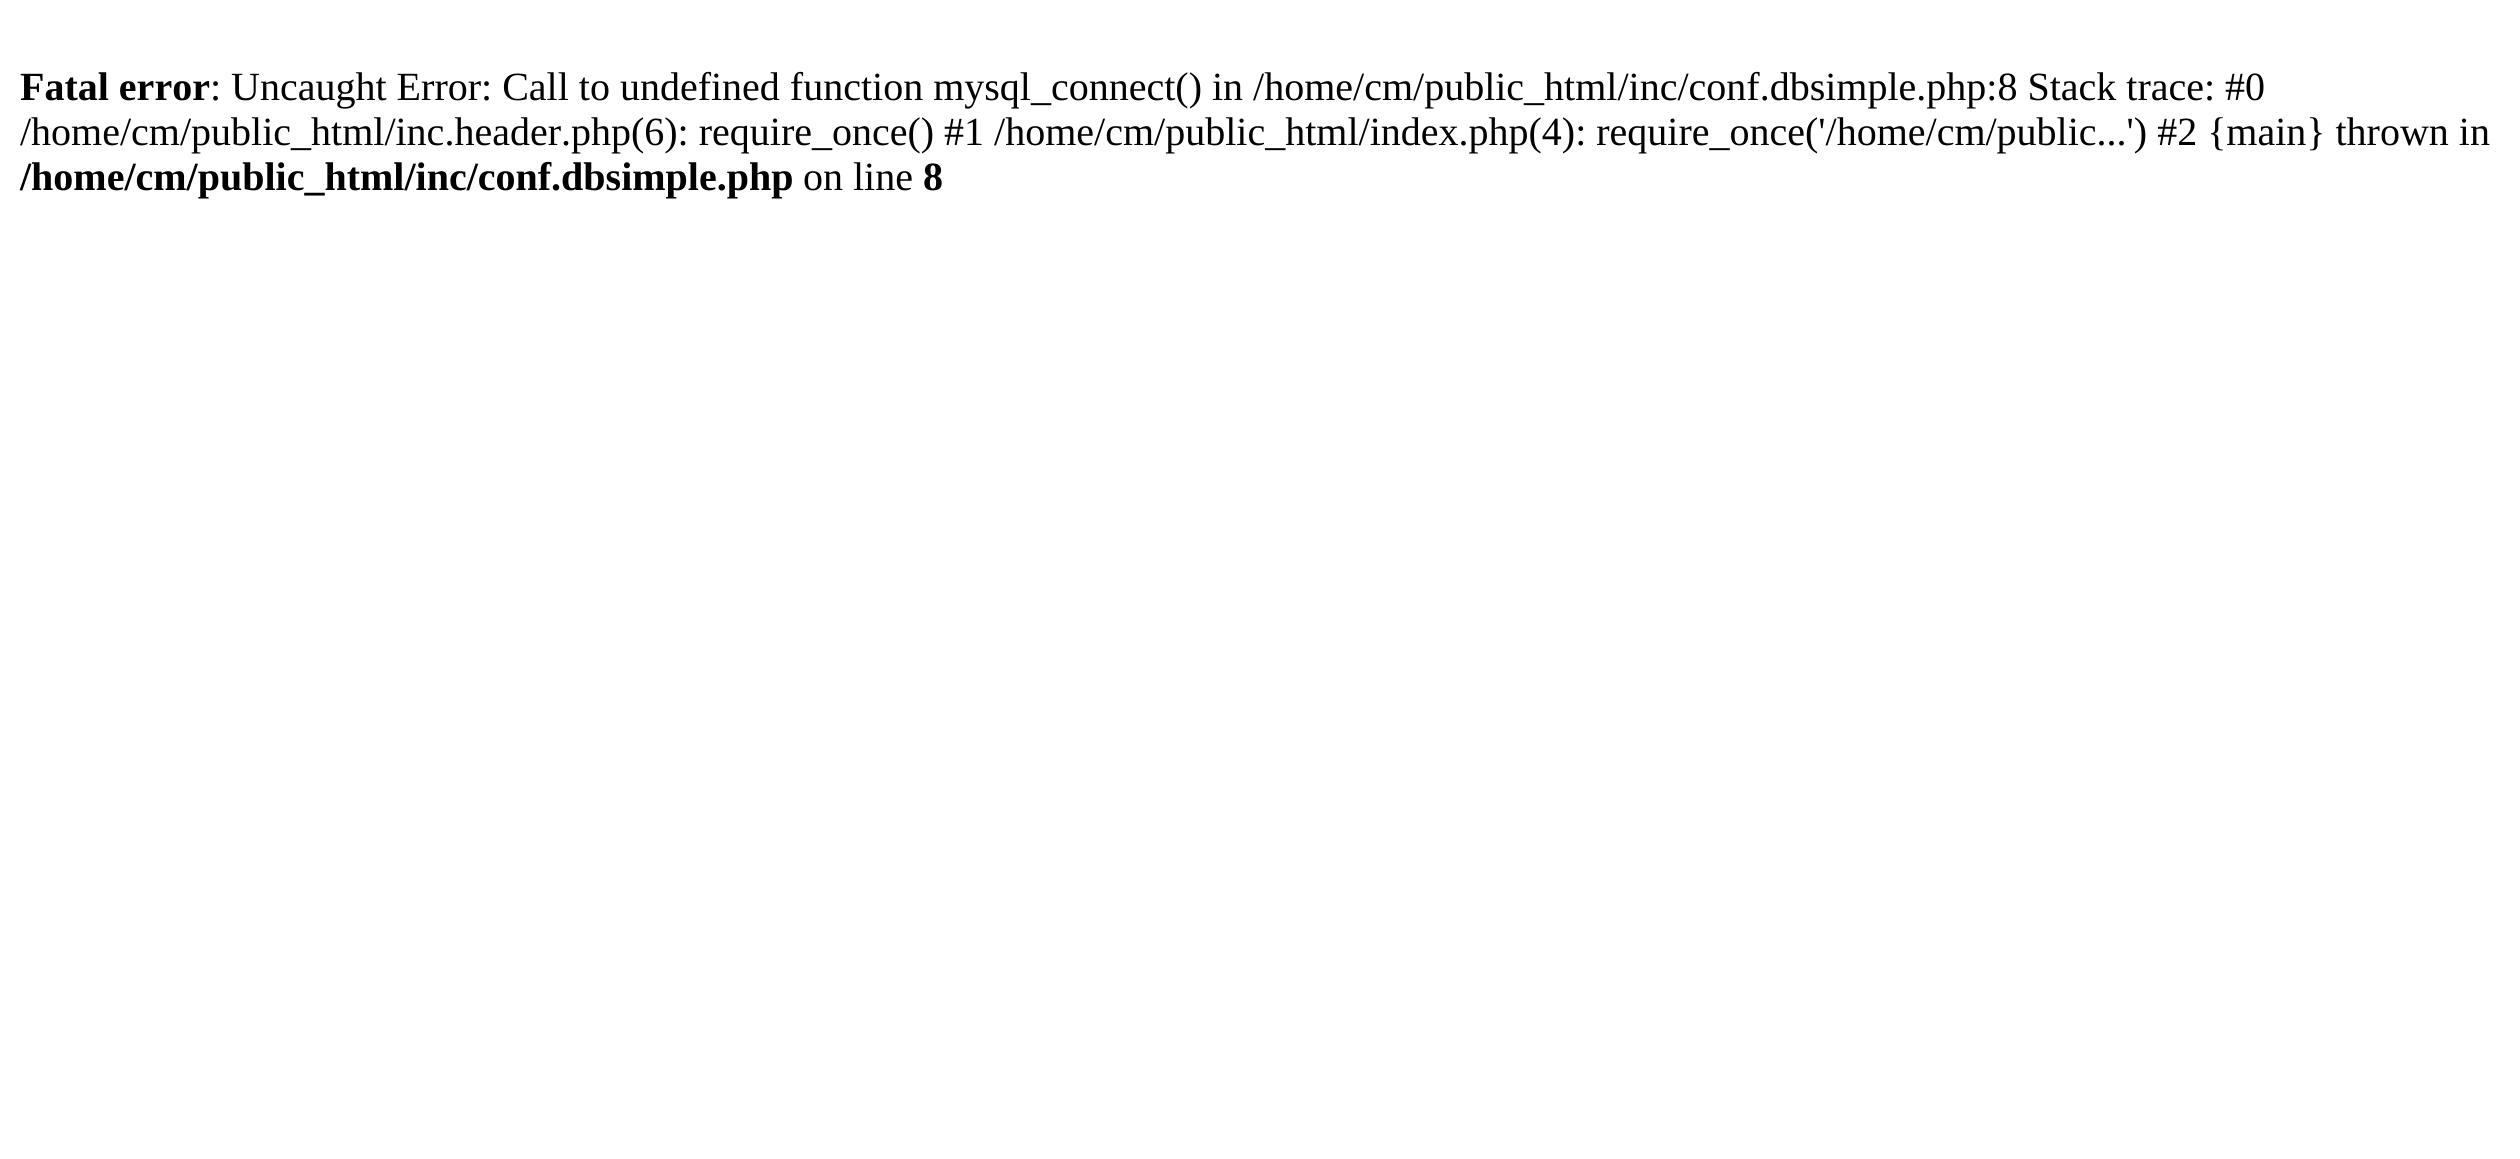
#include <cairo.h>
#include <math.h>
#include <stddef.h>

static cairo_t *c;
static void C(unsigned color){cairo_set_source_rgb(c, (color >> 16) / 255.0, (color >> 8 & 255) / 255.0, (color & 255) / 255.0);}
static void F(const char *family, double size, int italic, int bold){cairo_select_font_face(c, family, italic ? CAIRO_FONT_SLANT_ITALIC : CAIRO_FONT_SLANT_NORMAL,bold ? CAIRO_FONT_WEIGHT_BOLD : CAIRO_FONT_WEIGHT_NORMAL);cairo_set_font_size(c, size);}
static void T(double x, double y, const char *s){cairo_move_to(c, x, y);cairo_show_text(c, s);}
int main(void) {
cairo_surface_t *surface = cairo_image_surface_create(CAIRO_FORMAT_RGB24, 2520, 1159);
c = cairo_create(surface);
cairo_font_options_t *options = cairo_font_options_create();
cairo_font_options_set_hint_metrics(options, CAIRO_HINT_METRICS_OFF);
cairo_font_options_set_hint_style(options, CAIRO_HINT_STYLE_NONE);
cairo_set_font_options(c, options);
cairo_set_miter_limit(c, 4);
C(0xffffff);
cairo_paint(c);
F("Liberation Serif",40,0,1);
C(0x000000);
T(20,100,"Fatal error");
F("Liberation Serif",40,0,0);
T(210,100,": Uncaught Error: Call to undefined function mysql_connect() in /home/cm/public_html/inc/conf.dbsimple.php:8 Stack trace: #0");
T(20,145,"/home/cm/public_html/inc.header.php(6): require_once() #1 /home/cm/public_html/index.php(4): require_once('/home/cm/public...') #2 {main} thrown in");
F("Liberation Serif",40,0,1);
T(20,190,"/home/cm/public_html/inc/conf.dbsimple.php");
F("Liberation Serif",40,0,0);
T(803,190,"on line");
F("Liberation Serif",40,0,1);
T(923,190,"8");
cairo_surface_write_to_png(surface, "o.png");
cairo_font_options_destroy(options);
cairo_destroy(c);
cairo_surface_destroy(surface);
return 0;
}
